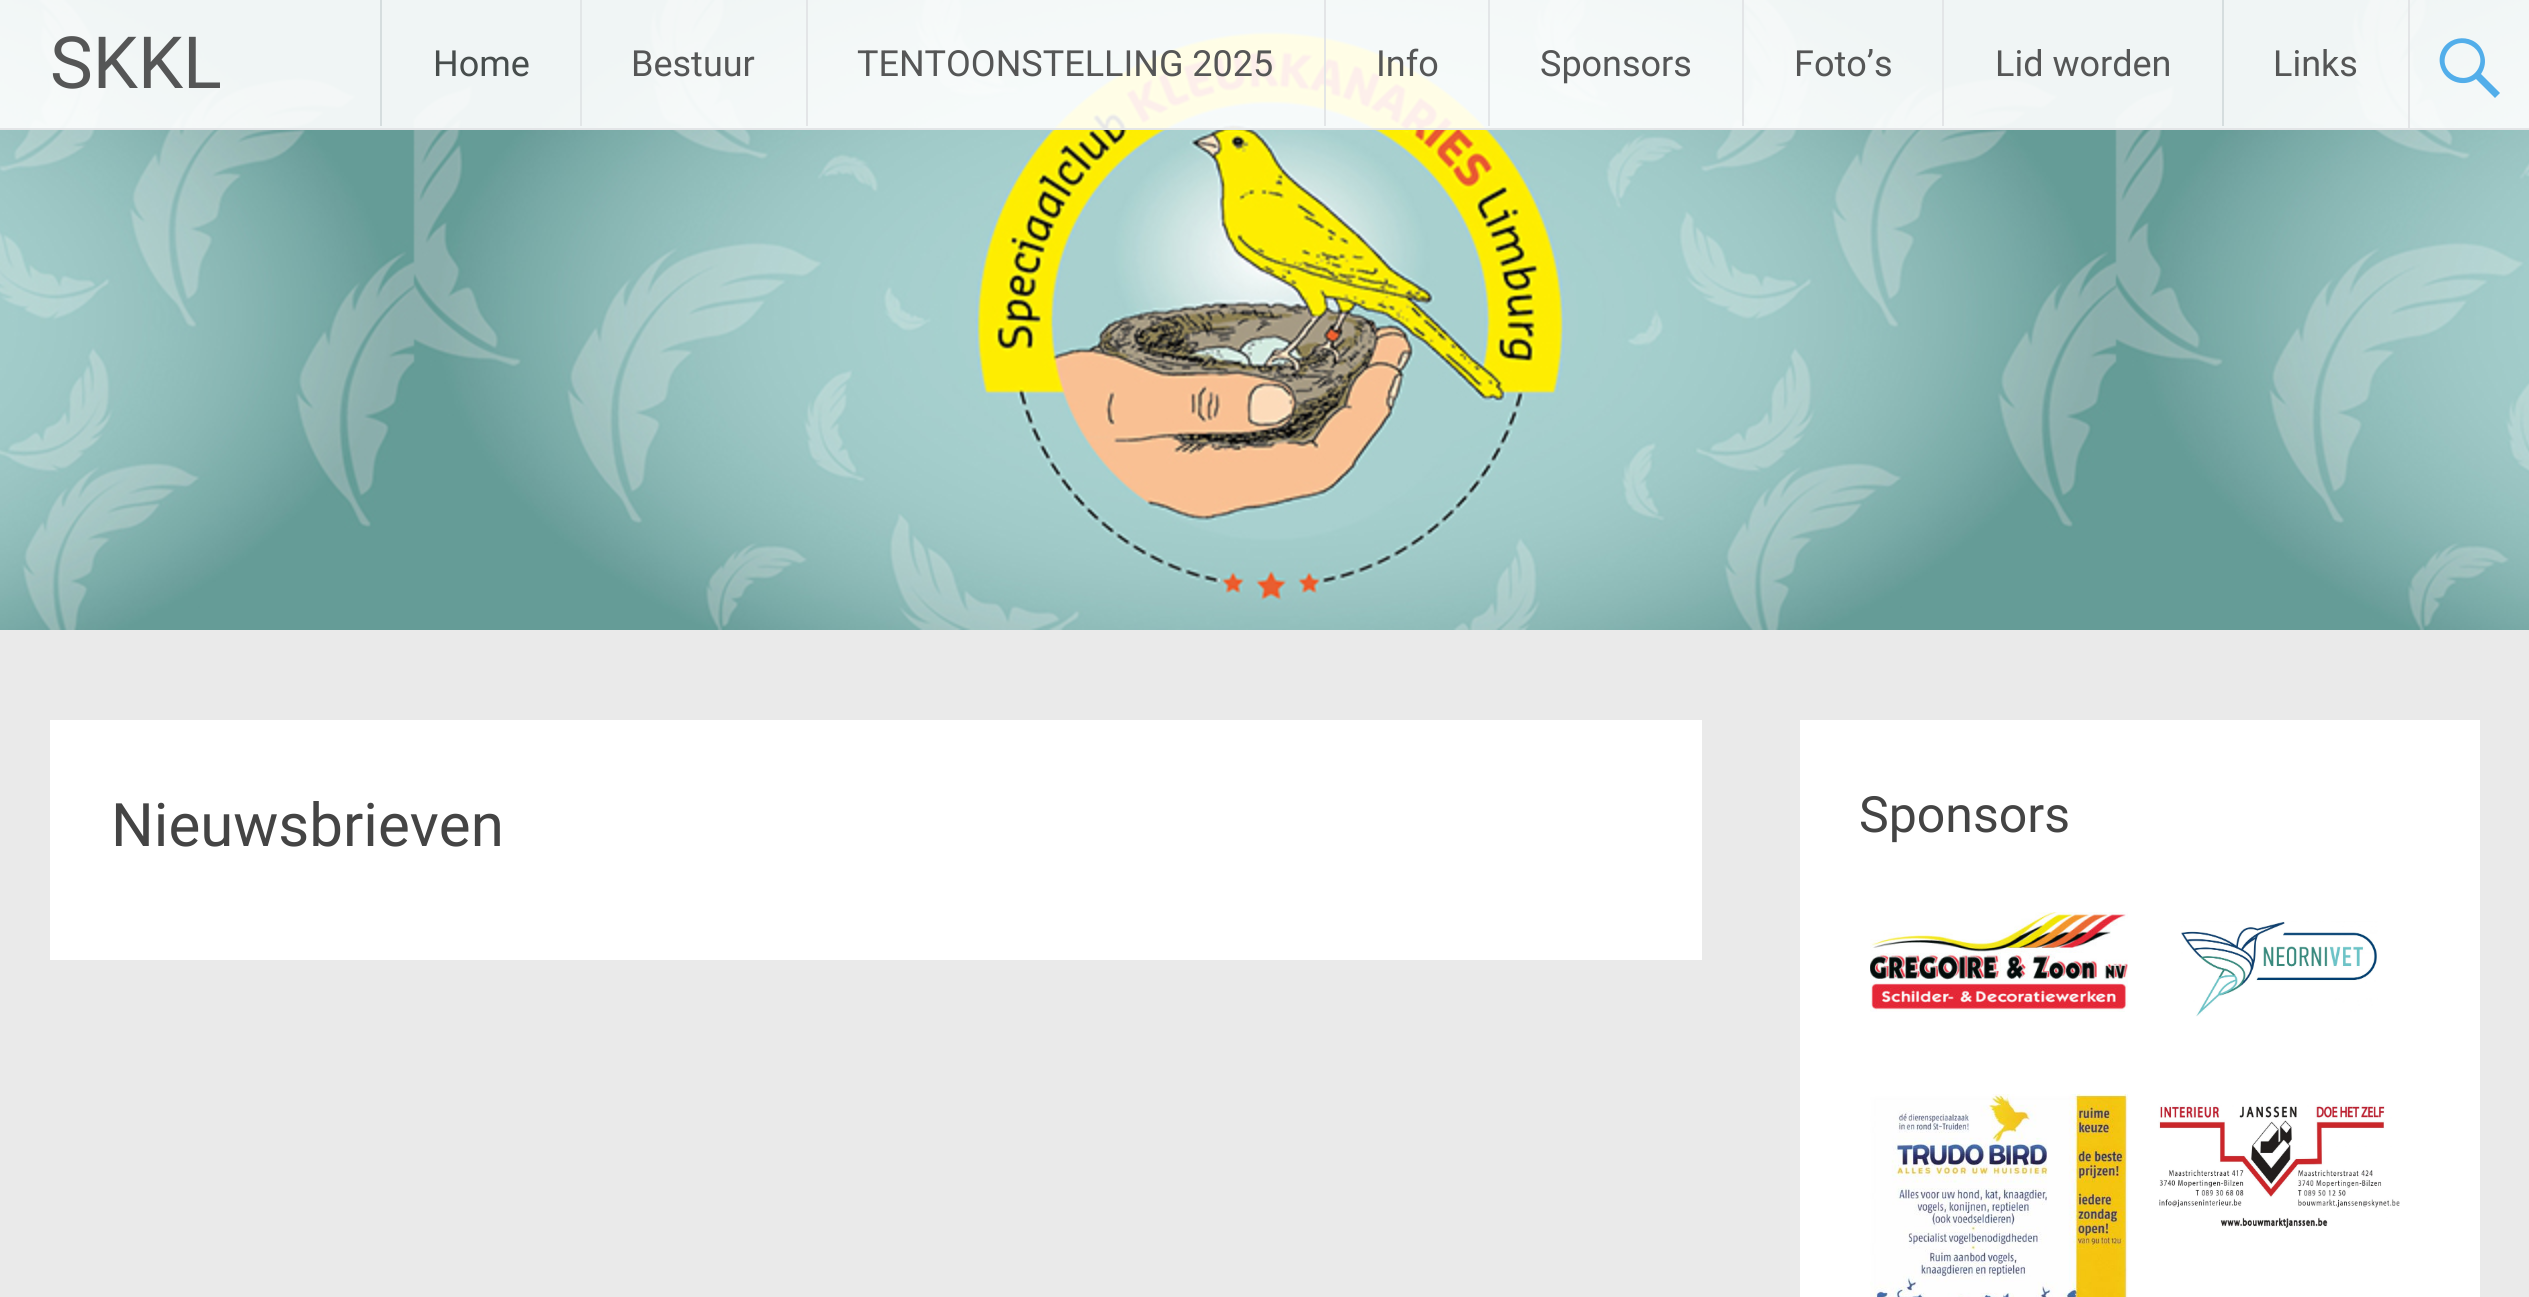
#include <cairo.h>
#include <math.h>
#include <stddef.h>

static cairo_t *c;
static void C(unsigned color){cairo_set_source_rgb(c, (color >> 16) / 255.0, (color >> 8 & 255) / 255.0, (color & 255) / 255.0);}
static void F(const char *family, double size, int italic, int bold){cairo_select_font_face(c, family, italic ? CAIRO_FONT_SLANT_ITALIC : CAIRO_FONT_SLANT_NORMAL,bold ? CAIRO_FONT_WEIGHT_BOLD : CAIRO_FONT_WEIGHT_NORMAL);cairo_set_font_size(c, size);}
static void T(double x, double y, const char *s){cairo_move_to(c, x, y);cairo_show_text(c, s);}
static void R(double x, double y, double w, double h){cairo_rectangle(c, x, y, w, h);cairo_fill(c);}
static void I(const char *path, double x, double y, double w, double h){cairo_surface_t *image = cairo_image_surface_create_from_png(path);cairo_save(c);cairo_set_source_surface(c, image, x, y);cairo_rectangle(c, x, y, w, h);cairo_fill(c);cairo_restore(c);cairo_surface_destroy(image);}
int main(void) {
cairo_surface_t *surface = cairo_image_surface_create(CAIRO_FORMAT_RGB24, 2529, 1297);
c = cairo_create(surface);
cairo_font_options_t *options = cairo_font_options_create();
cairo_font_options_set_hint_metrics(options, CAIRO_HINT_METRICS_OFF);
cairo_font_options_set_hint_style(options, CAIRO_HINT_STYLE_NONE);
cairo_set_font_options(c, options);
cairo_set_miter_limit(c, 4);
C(0xffffff);
cairo_paint(c);
I("1.png",0,0,2529,630);
cairo_set_source_rgba(c,1,1,1,0.9);
R(0,0,2529,130);
cairo_set_source_rgba(c,0.882,0.894,0.902,0.9);
R(0,128,2529,2);
F("Roboto",72,0,0);
C(0x555656);
T(50,88,"SKKL");
C(0xd5ddde);
R(380,0,2,126);
F("Roboto",36,0,0);
C(0x474d4c);
T(433,76,"Home");
C(0xe2e6e7);
R(580,0,2,126);
C(0x555656);
T(631,76,"Bestuur");
cairo_set_source_rgba(c,0.882,0.894,0.902,0.9);
R(806,0,2,126);
C(0x555656);
T(857,76,"TENTOONSTELLING 2025");
cairo_set_source_rgba(c,0.882,0.894,0.902,0.9);
R(1324,0,2,126);
C(0x555656);
T(1376,76,"Info");
C(0xe3e6e8);
R(1488,0,2,126);
C(0x555656);
T(1540,76,"Sponsors");
cairo_set_source_rgba(c,0.882,0.894,0.902,0.9);
R(1742,0,2,126);
C(0x555656);
T(1794,76,"Foto’s");
cairo_set_source_rgba(c,0.882,0.894,0.902,0.9);
R(1942,0,2,126);
C(0x555656);
T(1995,76,"Lid worden");
C(0xd5ddde);
R(2222,0,2,126);
C(0x555656);
T(2273,76,"Links");
cairo_set_source_rgba(c,0.882,0.894,0.902,0.9);
R(2408,0,2,128);
C(0x52aeea);
cairo_new_path(c);
cairo_move_to(c,2500,93);
cairo_line_to(c,2495,98);
cairo_line_to(c,2476,79);
cairo_curve_to(c,2465,87,2448,83,2442,70);
cairo_curve_to(c,2440,66,2439,61,2440,56);
cairo_curve_to(c,2445,33,2478,32,2484,55);
cairo_curve_to(c,2486,61,2485,68,2481,74);
cairo_close_path(c);
cairo_move_to(c,2447,52);
cairo_curve_to(c,2436,72,2466,89,2478,69);
cairo_curve_to(c,2489,49,2459,32,2447,52);
cairo_close_path(c);
cairo_fill(c);
C(0xeaeaea);
R(0,630,2529,667);
C(0xffffff);
R(50,720,1652,240);
F("Roboto",60,0,0);
C(0x444444);
T(111,846,"Nieuwsbrieven");
C(0xffffff);
R(1800,720,680,577);
F("Roboto",50,0,0);
C(0x444444);
T(1859,832,"Sponsors");
I("2.png",1870,912,258,100);
I("3.png",2181,921,197,96);
I("4.png",1870,1094,258,203);
I("5.png",2158,1105,242,123);
cairo_surface_write_to_png(surface, "o.png");
cairo_font_options_destroy(options);
cairo_destroy(c);
cairo_surface_destroy(surface);
return 0;
}
